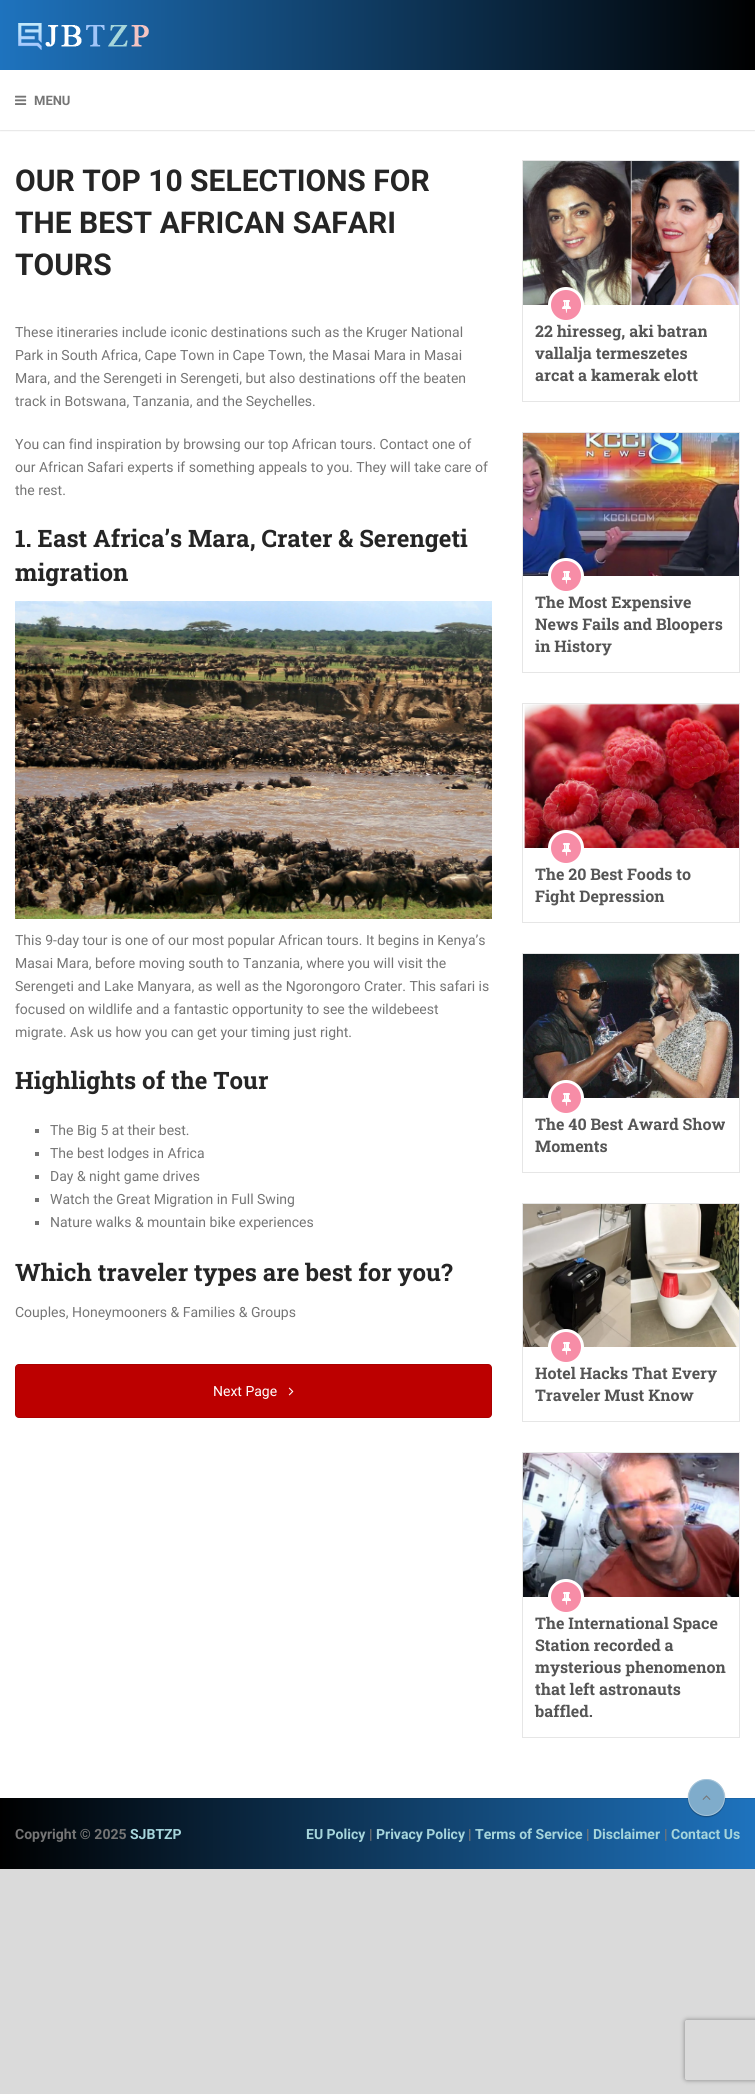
#include <cairo.h>
#include <math.h>
#include <stddef.h>

static cairo_t *c;
static void C(unsigned color){cairo_set_source_rgb(c, (color >> 16) / 255.0, (color >> 8 & 255) / 255.0, (color & 255) / 255.0);}
static void F(const char *family, double size, int italic, int bold){cairo_select_font_face(c, family, italic ? CAIRO_FONT_SLANT_ITALIC : CAIRO_FONT_SLANT_NORMAL,bold ? CAIRO_FONT_WEIGHT_BOLD : CAIRO_FONT_WEIGHT_NORMAL);cairo_set_font_size(c, size);}
static void T(double x, double y, const char *s){cairo_move_to(c, x, y);cairo_show_text(c, s);}
static void R(double x, double y, double w, double h){cairo_rectangle(c, x, y, w, h);cairo_fill(c);}
static void Q(double x, double y, double w, double h, double r){cairo_new_sub_path(c);cairo_arc(c, x + w - r, y + h - r, r, 0, M_PI / 2);cairo_arc(c, x + r, y + h - r, r, M_PI / 2, M_PI);cairo_arc(c, x + r, y + r, r, M_PI, 1.5 * M_PI);cairo_arc(c, x + w - r, y + r, r, 1.5 * M_PI, 2 * M_PI);cairo_close_path(c);}
static void S(double x, double y, double w, double h, double r, double blur, double alpha){cairo_push_group_with_content(c, CAIRO_CONTENT_ALPHA);cairo_set_operator(c, CAIRO_OPERATOR_SOURCE);for (int i = 15; i >= -15 && fmin(w, h) + blur * i / 3 > 0; i -= 2) {double e = blur * i / 6;cairo_set_source_rgba(c, 0, 0, 0, alpha * erfc((i - 1) / 8.5) / 2);Q(x - e, y - e, w + 2 * e, h + 2 * e, fmax(0, fmin(r + e + blur * .6, fmin(w, h) / 2 + e)));cairo_fill(c);}cairo_pattern_t *soft = cairo_pop_group(c);cairo_mask(c, soft);cairo_pattern_destroy(soft);}
static void I(const char *path, double x, double y, double w, double h){cairo_surface_t *image = cairo_image_surface_create_from_png(path);cairo_save(c);cairo_set_source_surface(c, image, x, y);cairo_rectangle(c, x, y, w, h);cairo_fill(c);cairo_restore(c);cairo_surface_destroy(image);}
int main(void) {
cairo_surface_t *surface = cairo_image_surface_create(CAIRO_FORMAT_RGB24, 755, 2094);
c = cairo_create(surface);
cairo_font_options_t *options = cairo_font_options_create();
cairo_font_options_set_hint_metrics(options, CAIRO_HINT_METRICS_OFF);
cairo_font_options_set_hint_style(options, CAIRO_HINT_STYLE_NONE);
cairo_set_font_options(c, options);
cairo_set_miter_limit(c, 4);
cairo_pattern_t *gradient;
C(0xdadada);
cairo_paint(c);
gradient = cairo_pattern_create_linear(0,35,755,35);
cairo_pattern_add_color_stop_rgba(gradient,0,0.118,0.451,0.745,1);
cairo_pattern_add_color_stop_rgba(gradient,1,0,0,0,1);
cairo_set_source(c,gradient);
cairo_pattern_destroy(gradient);
R(0,0,755,70);
I("1.png",18,23,131,27);
C(0xffffff);
R(0,130,755,1668);
C(0x000000);
S(0,71,755,60,0,.5,.1);
C(0xffffff);
R(0,70,755,60);
I("2.png",15,95,12,10);
F("Roboto",13,0,1);
C(0x757575);
T(34,105,"MENU");
F("Roboto",30,0,1);
C(0x252525);
T(15,191,"OUR TOP 10 SELECTIONS FOR");
T(15,233,"THE BEST AFRICAN SAFARI");
T(15,275,"TOURS");
F("Roboto",14,0,0);
C(0x757575);
T(15,337,"These itineraries include iconic destinations such as the Kruger National");
T(15,360,"Park in South Africa, Cape Town in Cape Town, the Masai Mara in Masai");
T(15,383,"Mara, and the Serengeti in Serengeti, but also destinations off the beaten");
T(15,406,"track in Botswana, Tanzania, and the Seychelles.");
T(15,449,"You can find inspiration by browsing our top African tours. Contact one of");
T(15,472,"our African Safari experts if something appeals to you. They will take care of");
T(15,495,"the rest.");
F("Roboto Slab",24,0,1);
C(0x252525);
T(15,547,"1. East Africa’s Mara, Crater & Serengeti");
T(15,581,"migration");
I("3.png",15,601,477,318);
F("Roboto",14,0,0);
C(0x757575);
T(15,945,"This 9-day tour is one of our most popular African tours. It begins in Kenya’s");
T(15,968,"Masai Mara, before moving south to Tanzania, where you will visit the");
T(15,991,"Serengeti and Lake Manyara, as well as the Ngorongoro Crater. This safari is");
T(15,1014,"focused on wildlife and a fantastic opportunity to see the wildebeest");
T(15,1037,"migrate. Ask us how you can get your timing just right.");
F("Roboto Slab",24,0,1);
C(0x252525);
T(15,1089,"Highlights of the Tour");
C(0x757575);
R(35,1129,4,4);
F("Roboto",14,0,0);
T(50,1135,"The Big 5 at their best.");
R(35,1152,4,4);
T(50,1158,"The best lodges in Africa");
R(35,1175,4,4);
T(50,1181,"Day & night game drives");
R(35,1198,4,4);
T(50,1204,"Watch the Great Migration in Full Swing");
R(35,1221,4,4);
T(50,1227,"Nature walks & mountain bike experiences");
F("Roboto Slab",24,0,1);
C(0x252525);
T(15,1281,"Which traveler types are best for you?");
F("Roboto",14,0,0);
C(0x757575);
T(15,1317,"Couples, Honeymooners & Families & Groups");
C(0xbc0000);
Q(15,1364,477,54,4);
cairo_fill(c);
Q(15.5,1364.5,476,53,3.5);
cairo_set_source_rgba(c,0,0,0,0.1);
cairo_set_line_width(c,1);
cairo_stroke(c);
C(0xffffff);
T(213,1396,"Next Page");
I("4.png",288,1387,6,9);
cairo_rectangle(c,522.5,160.5,217,241);
C(0xe6e6e6);
cairo_stroke(c);
I("5.png",523,161,216,144);
C(0xf78da7);
cairo_arc(c,566,305,16.5,0,2 * M_PI);
cairo_fill_preserve(c);
C(0xffffff);
cairo_set_line_width(c,3);
cairo_stroke(c);
I("6.png",562,300,9,13);
F("Roboto Slab",16,0,1);
C(0x555555);
T(535,337,"22 hiresseg, aki batran");
T(535,359,"vallalja termeszetes");
T(535,381,"arcat a kamerak elott");
cairo_rectangle(c,522.5,432.5,217,240);
C(0xe6e6e6);
cairo_set_line_width(c,1);
cairo_stroke(c);
I("7.png",523,433,216,143);
C(0xf78da7);
cairo_arc(c,566,576,16.5,0,2 * M_PI);
cairo_fill_preserve(c);
C(0xffffff);
cairo_set_line_width(c,3);
cairo_stroke(c);
I("6.png",562,571,9,13);
C(0x555555);
T(535,608,"The Most Expensive");
T(535,630,"News Fails and Bloopers");
T(535,652,"in History");
cairo_rectangle(c,522.5,703.5,217,219);
C(0xe6e6e6);
cairo_set_line_width(c,1);
cairo_stroke(c);
I("8.png",524,704,215,144);
C(0xf78da7);
cairo_arc(c,566,848,16.5,0,2 * M_PI);
cairo_fill_preserve(c);
C(0xffffff);
cairo_set_line_width(c,3);
cairo_stroke(c);
I("6.png",562,843,9,13);
C(0x555555);
T(535,880,"The 20 Best Foods to");
T(535,902,"Fight Depression");
cairo_rectangle(c,522.5,953.5,217,219);
C(0xe6e6e6);
cairo_set_line_width(c,1);
cairo_stroke(c);
I("9.png",523,954,216,144);
C(0xf78da7);
cairo_arc(c,566,1098,16.5,0,2 * M_PI);
cairo_fill_preserve(c);
C(0xffffff);
cairo_set_line_width(c,3);
cairo_stroke(c);
I("6.png",562,1093,9,13);
C(0x555555);
T(535,1130,"The 40 Best Award Show");
T(535,1152,"Moments");
cairo_rectangle(c,522.5,1203.5,217,218);
C(0xe6e6e6);
cairo_set_line_width(c,1);
cairo_stroke(c);
I("10.png",523,1204,216,143);
C(0xf78da7);
cairo_arc(c,566,1347,16.5,0,2 * M_PI);
cairo_fill_preserve(c);
C(0xffffff);
cairo_set_line_width(c,3);
cairo_stroke(c);
I("6.png",562,1342,9,13);
C(0x555555);
T(535,1379,"Hotel Hacks That Every");
T(535,1401,"Traveler Must Know");
cairo_rectangle(c,522.5,1452.5,217,285);
C(0xe6e6e6);
cairo_set_line_width(c,1);
cairo_stroke(c);
I("11.png",523,1453,216,144);
C(0xf78da7);
cairo_arc(c,566,1597,16.5,0,2 * M_PI);
cairo_fill_preserve(c);
C(0xffffff);
cairo_set_line_width(c,3);
cairo_stroke(c);
I("6.png",562,1592,9,13);
C(0x555555);
T(535,1629,"The International Space");
T(535,1651,"Station recorded a");
T(535,1673,"mysterious phenomenon");
T(535,1695,"that left astronauts");
T(535,1717,"baffled.");
gradient = cairo_pattern_create_linear(0,1834,755,1834);
cairo_pattern_add_color_stop_rgba(gradient,0,0,0,0,1);
cairo_pattern_add_color_stop_rgba(gradient,1,0.118,0.451,0.745,1);
cairo_set_source(c,gradient);
cairo_pattern_destroy(gradient);
R(0,1799,755,70);
gradient = cairo_pattern_create_linear(0,1834,755,1834);
cairo_pattern_add_color_stop_rgba(gradient,0,0,0,0,1);
cairo_pattern_add_color_stop_rgba(gradient,1,0.106,0.408,0.671,1);
cairo_set_source(c,gradient);
cairo_pattern_destroy(gradient);
R(0,1798,755,1);
C(0x000000);
S(688,1780,37,37,18.5,.5,.3);
C(0x7faccb);
cairo_arc(c,706.5,1797.5,18.5,0,2 * M_PI);
cairo_fill(c);
cairo_arc(c,706.5,1797.5,18,0,2 * M_PI);
cairo_set_source_rgba(c,1,1,1,0.3);
cairo_set_line_width(c,1);
cairo_stroke(c);
I("12.png",702,1795,9,5);
F("Roboto",14,0,1);
C(0x757575);
T(15,1839,"Copyright © 2025");
C(0xa6d5db);
T(130,1839,"SJBTZP");
T(306,1839,"EU Policy");
C(0x757575);
T(369,1839,"|");
C(0xa6d5db);
T(376,1839,"Privacy Policy");
C(0x757575);
T(468,1839,"|");
C(0xa6d5db);
T(475,1839,"Terms of Service");
C(0x757575);
T(586,1839,"|");
C(0xa6d5db);
T(593,1839,"Disclaimer");
C(0x757575);
T(664,1839,"|");
C(0xa6d5db);
T(671,1839,"Contact Us");
cairo_save(c);
cairo_set_fill_rule(c,CAIRO_FILL_RULE_EVEN_ODD);
cairo_new_path(c);
cairo_move_to(c,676,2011);
cairo_line_to(c,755,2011);
cairo_line_to(c,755,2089);
cairo_line_to(c,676,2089);
cairo_close_path(c);
cairo_move_to(c,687,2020);
cairo_line_to(c,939,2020);
cairo_curve_to(c,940,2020,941,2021,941,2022);
cairo_line_to(c,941,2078);
cairo_curve_to(c,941,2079,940,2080,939,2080);
cairo_line_to(c,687,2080);
cairo_curve_to(c,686,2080,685,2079,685,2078);
cairo_line_to(c,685,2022);
cairo_curve_to(c,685,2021,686,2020,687,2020);
cairo_close_path(c);
cairo_clip(c);
C(0x808080);
S(685,2020,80,60,2,2.5,1);
cairo_restore(c);
cairo_surface_write_to_png(surface, "o.png");
cairo_font_options_destroy(options);
cairo_destroy(c);
cairo_surface_destroy(surface);
return 0;
}
